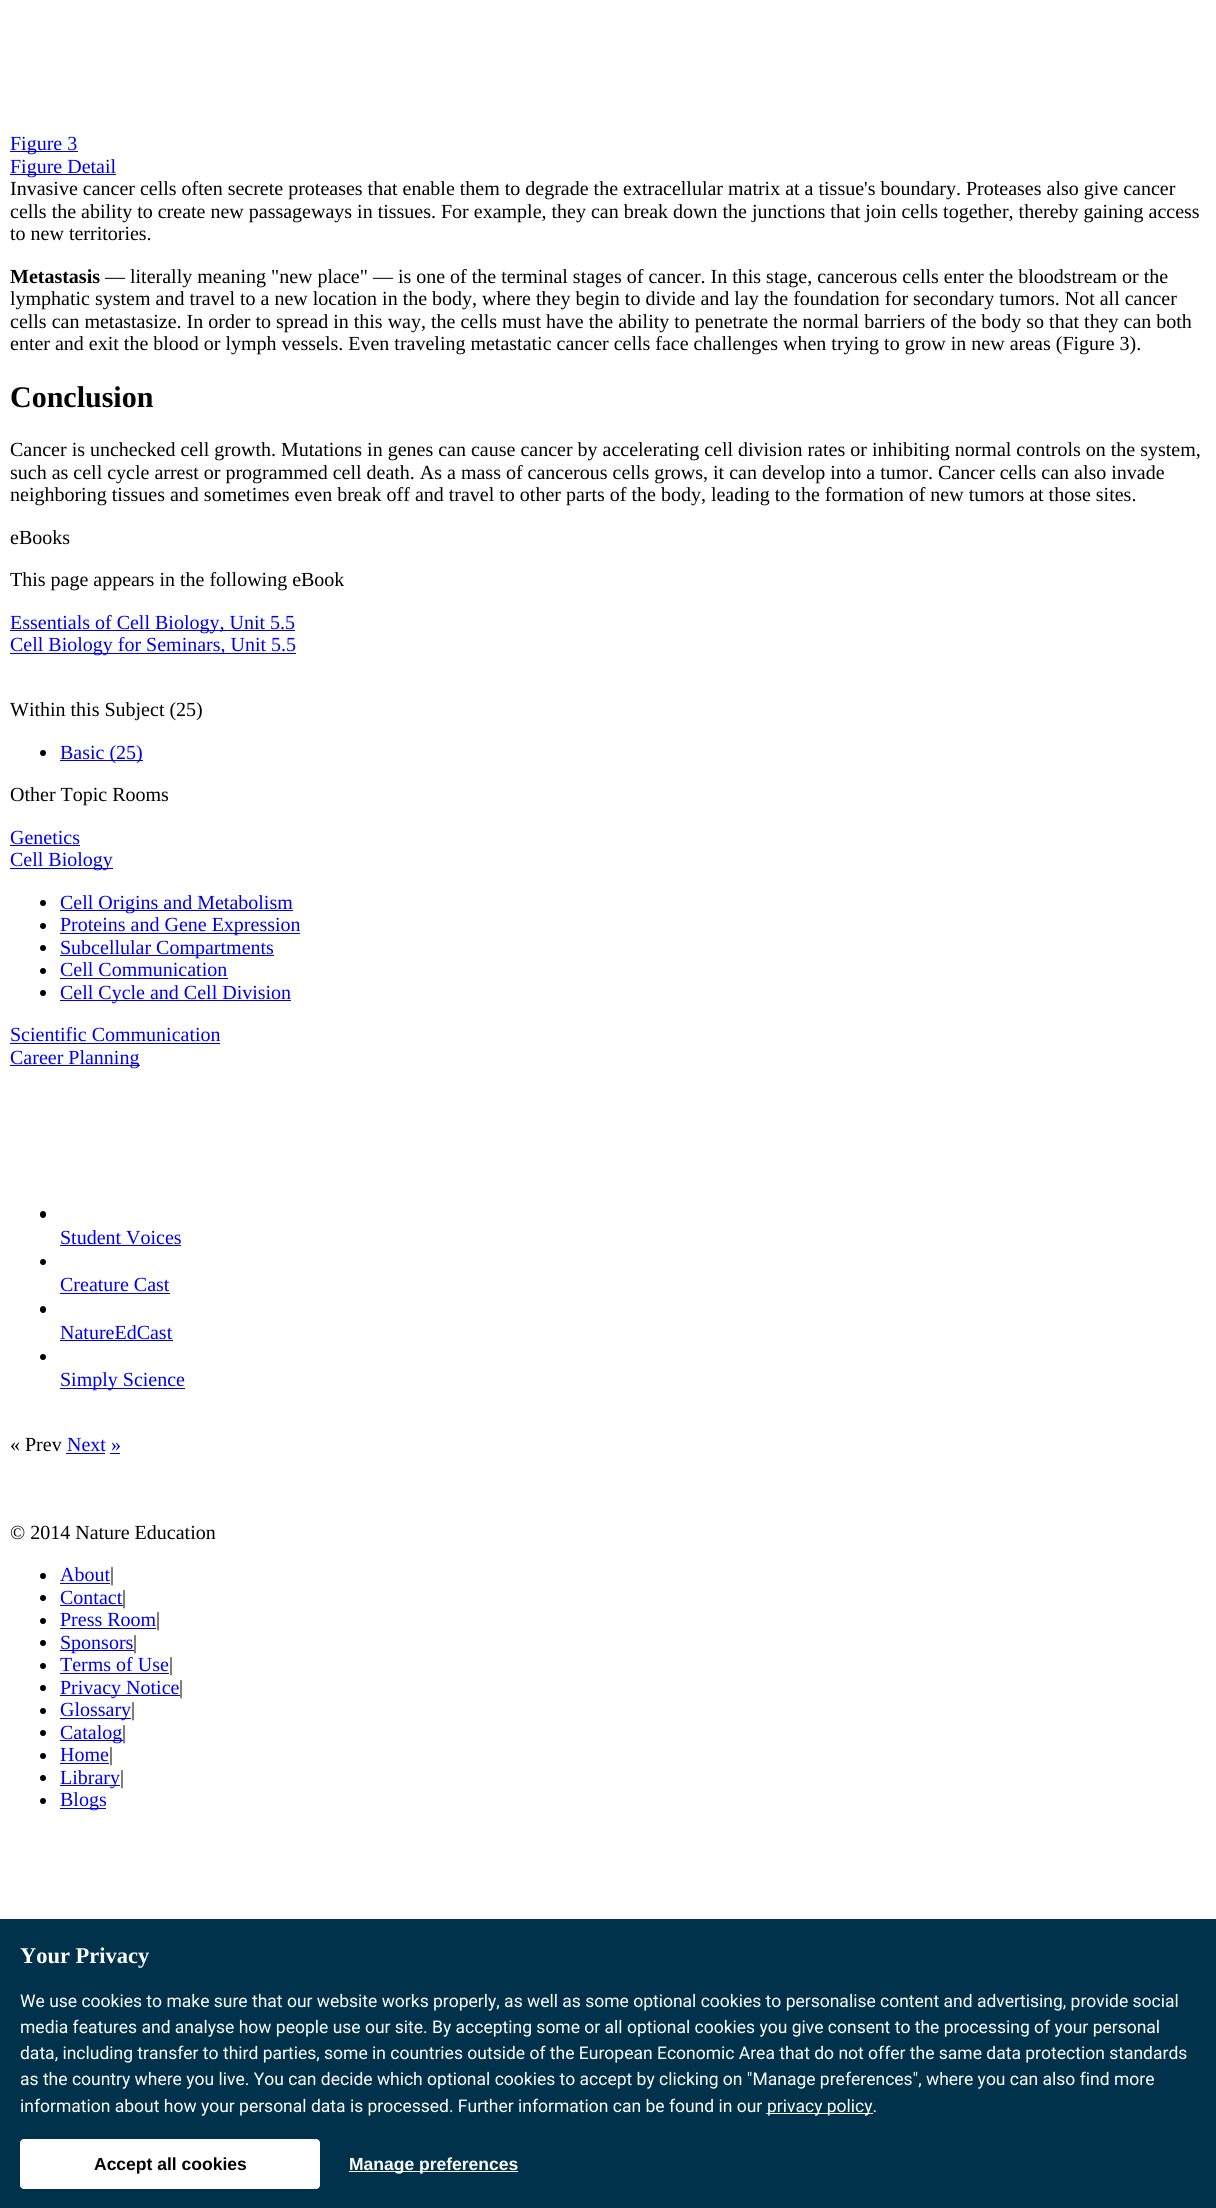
#include <cairo.h>
#include <math.h>
#include <stddef.h>

static cairo_t *c;
static void C(unsigned color){cairo_set_source_rgb(c, (color >> 16) / 255.0, (color >> 8 & 255) / 255.0, (color & 255) / 255.0);}
static void F(const char *family, double size, int italic, int bold){cairo_select_font_face(c, family, italic ? CAIRO_FONT_SLANT_ITALIC : CAIRO_FONT_SLANT_NORMAL,bold ? CAIRO_FONT_WEIGHT_BOLD : CAIRO_FONT_WEIGHT_NORMAL);cairo_set_font_size(c, size);}
static void T(double x, double y, const char *s){cairo_move_to(c, x, y);cairo_show_text(c, s);}
static void R(double x, double y, double w, double h){cairo_rectangle(c, x, y, w, h);cairo_fill(c);}
static void Q(double x, double y, double w, double h, double r){cairo_new_sub_path(c);cairo_arc(c, x + w - r, y + h - r, r, 0, M_PI / 2);cairo_arc(c, x + r, y + h - r, r, M_PI / 2, M_PI);cairo_arc(c, x + r, y + r, r, M_PI, 1.5 * M_PI);cairo_arc(c, x + w - r, y + r, r, 1.5 * M_PI, 2 * M_PI);cairo_close_path(c);}
int main(void) {
cairo_surface_t *surface = cairo_image_surface_create(CAIRO_FORMAT_RGB24, 1216, 2208);
c = cairo_create(surface);
cairo_font_options_t *options = cairo_font_options_create();
cairo_font_options_set_hint_metrics(options, CAIRO_HINT_METRICS_OFF);
cairo_font_options_set_hint_style(options, CAIRO_HINT_STYLE_NONE);
cairo_set_font_options(c, options);
cairo_set_miter_limit(c, 4);
C(0xffffff);
cairo_paint(c);
C(0x0000ee);
R(10,151,68,1);
F("Liberation Serif",20,0,0);
T(10,150,"Figure 3");
R(10,174,106,1);
T(10,173,"Figure Detail");
C(0x000000);
T(10,195,"Invasive cancer cells often secrete proteases that enable them to degrade the extracellular matrix at a tissue's boundary. Proteases also give cancer");
T(10,218,"cells the ability to create new passageways in tissues. For example, they can break down the junctions that join cells together, thereby gaining access");
T(10,240,"to new territories.");
F("Liberation Serif",20,0,1);
T(10,283,"Metastasis");
F("Liberation Serif",20,0,0);
T(105,283,"— literally meaning \"new place\" — is one of the terminal stages of cancer. In this stage, cancerous cells enter the bloodstream or the");
T(10,305,"lymphatic system and travel to a new location in the body, where they begin to divide and lay the foundation for secondary tumors. Not all cancer");
T(10,328,"cells can metastasize. In order to spread in this way, the cells must have the ability to penetrate the normal barriers of the body so that they can both");
T(10,350,"enter and exit the blood or lymph vessels. Even traveling metastatic cancer cells face challenges when trying to grow in new areas (Figure 3).");
F("Liberation Serif",30,0,1);
T(10,407,"Conclusion");
F("Liberation Serif",20,0,0);
T(10,456,"Cancer is unchecked cell growth. Mutations in genes can cause cancer by accelerating cell division rates or inhibiting normal controls on the system,");
T(10,479,"such as cell cycle arrest or programmed cell death. As a mass of cancerous cells grows, it can develop into a tumor. Cancer cells can also invade");
T(10,501,"neighboring tissues and sometimes even break off and travel to other parts of the body, leading to the formation of new tumors at those sites.");
T(10,544,"eBooks");
T(10,586,"This page appears in the following eBook");
C(0x0000ee);
R(10,630,285,1);
T(10,629,"Essentials of Cell Biology, Unit 5.5");
R(10,653,286,1);
T(10,651,"Cell Biology for Seminars, Unit 5.5");
C(0x000000);
T(10,716,"Within this Subject (25)");
cairo_new_path(c);
cairo_arc(c,43,753,3,0,2 * M_PI);
cairo_fill(c);
C(0x0000ee);
R(60,760,83,1);
T(60,759,"Basic (25)");
C(0x000000);
T(10,801,"Other Topic Rooms");
C(0x0000ee);
T(10,844,"Genetics");
R(10,845,70,1);
R(10,868,103,1);
T(10,866,"Cell Biology");
C(0x000000);
cairo_new_path(c);
cairo_arc(c,43,903,3,0,2 * M_PI);
cairo_fill(c);
C(0x0000ee);
R(60,910,233,1);
T(60,909,"Cell Origins and Metabolism");
C(0x000000);
cairo_new_path(c);
cairo_arc(c,43,926,3,0,2 * M_PI);
cairo_fill(c);
C(0x0000ee);
R(60,933,240,1);
T(60,931,"Proteins and Gene Expression");
C(0x000000);
cairo_new_path(c);
cairo_arc(c,43,948,3,0,2 * M_PI);
cairo_fill(c);
C(0x0000ee);
R(60,955,214,1);
T(60,954,"Subcellular Compartments");
C(0x000000);
cairo_new_path(c);
cairo_arc(c,43,971,3,0,2 * M_PI);
cairo_fill(c);
C(0x0000ee);
T(60,976,"Cell Communication");
R(60,978,168,1);
C(0x000000);
cairo_new_path(c);
cairo_arc(c,43,993,3,0,2 * M_PI);
cairo_fill(c);
C(0x0000ee);
R(60,1000,231,1);
T(60,999,"Cell Cycle and Cell Division");
T(10,1041,"Scientific Communication");
R(10,1043,210,1);
R(10,1065,130,1);
T(10,1064,"Career Planning");
C(0x000000);
Q(40,1211,6,7,3);
cairo_fill(c);
C(0x0000ee);
T(60,1244,"Student Voices");
R(60,1245,121,1);
C(0x000000);
cairo_new_path(c);
cairo_arc(c,43,1262,3,0,2 * M_PI);
cairo_fill(c);
C(0x0000ee);
T(60,1291,"Creature Cast");
R(60,1293,110,1);
C(0x000000);
Q(40,1306,6,7,3);
cairo_fill(c);
C(0x0000ee);
T(60,1339,"NatureEdCast");
R(60,1340,113,1);
C(0x000000);
cairo_new_path(c);
cairo_arc(c,43,1357,3,0,2 * M_PI);
cairo_fill(c);
C(0x0000ee);
R(60,1388,125,1);
T(60,1386,"Simply Science");
C(0x000000);
T(10,1451,"« Prev");
C(0x0000ee);
T(67,1451,"Next »");
R(66,1453,39,1);
R(110,1453,10,1);
C(0x000000);
T(10,1539,"© 2014 Nature Education");
cairo_new_path(c);
cairo_arc(c,43,1576,3,0,2 * M_PI);
cairo_fill(c);
C(0x0000ee);
T(60,1581,"About");
R(60,1583,50,1);
C(0x000000);
T(110,1581,"|");
cairo_new_path(c);
cairo_arc(c,43,1598,3,0,2 * M_PI);
cairo_fill(c);
C(0x0000ee);
T(60,1604,"Contact");
R(60,1605,63,1);
C(0x000000);
T(122,1604,"|");
cairo_new_path(c);
cairo_arc(c,43,1621,3,0,2 * M_PI);
cairo_fill(c);
C(0x0000ee);
T(60,1626,"Press Room");
R(60,1628,96,1);
C(0x000000);
T(156,1626,"|");
cairo_new_path(c);
cairo_arc(c,43,1643,3,0,2 * M_PI);
cairo_fill(c);
C(0x0000ee);
R(60,1650,74,1);
T(60,1649,"Sponsors");
C(0x000000);
T(133,1649,"|");
cairo_new_path(c);
cairo_arc(c,43,1666,3,0,2 * M_PI);
cairo_fill(c);
C(0x0000ee);
T(60,1671,"Terms of Use");
R(60,1673,109,1);
C(0x000000);
T(169,1671,"|");
cairo_new_path(c);
cairo_arc(c,43,1688,3,0,2 * M_PI);
cairo_fill(c);
C(0x0000ee);
R(60,1695,120,1);
T(60,1694,"Privacy Notice");
C(0x000000);
T(179,1694,"|");
cairo_new_path(c);
cairo_arc(c,43,1711,3,0,2 * M_PI);
cairo_fill(c);
C(0x0000ee);
R(60,1718,71,1);
T(60,1716,"Glossary");
C(0x000000);
T(131,1716,"|");
cairo_new_path(c);
cairo_arc(c,43,1733,3,0,2 * M_PI);
cairo_fill(c);
C(0x0000ee);
R(60,1740,63,1);
T(60,1739,"Catalog");
C(0x000000);
T(122,1739,"|");
cairo_new_path(c);
cairo_arc(c,43,1756,3,0,2 * M_PI);
cairo_fill(c);
C(0x0000ee);
T(60,1761,"Home");
R(60,1763,49,1);
C(0x000000);
T(109,1761,"|");
cairo_new_path(c);
cairo_arc(c,43,1778,3,0,2 * M_PI);
cairo_fill(c);
C(0x0000ee);
R(60,1785,60,1);
T(60,1784,"Library");
C(0x000000);
T(120,1784,"|");
cairo_new_path(c);
cairo_arc(c,43,1801,3,0,2 * M_PI);
cairo_fill(c);
C(0x0000ee);
R(60,1808,46,1);
T(60,1806,"Blogs");
C(0x01324b);
R(0,1919,1216,289);
F("Liberation Serif",22.5,0,1);
C(0xffffff);
T(20,1963,"Your Privacy");
F("Roboto",17.5,0,0);
T(20,2007,"We use cookies to make sure that our website works properly, as well as some optional cookies to personalise content and advertising, provide social");
T(20,2033,"media features and analyse how people use our site. By accepting some or all optional cookies you give consent to the processing of your personal");
T(20,2059,"data, including transfer to third parties, some in countries outside of the European Economic Area that do not offer the same data protection standards");
T(20,2085,"as the country where you live. You can decide which optional cookies to accept by clicking on \"Manage preferences\", where you can also find more");
T(20,2112,"information about how your personal data is processed. Further information can be found in our");
R(766,2113,107,1);
T(767,2112,"privacy policy.");
Q(20.5,2139.5,299,49,3.5);
cairo_fill_preserve(c);
cairo_set_line_width(c,1);
cairo_stroke(c);
F("Liberation Sans",17.5,0,1);
C(0x000000);
T(94,2170,"Accept all cookies");
C(0xffffff);
R(349,2171,169,1);
T(349,2170,"Manage preferences");
cairo_surface_write_to_png(surface, "o.png");
cairo_font_options_destroy(options);
cairo_destroy(c);
cairo_surface_destroy(surface);
return 0;
}
